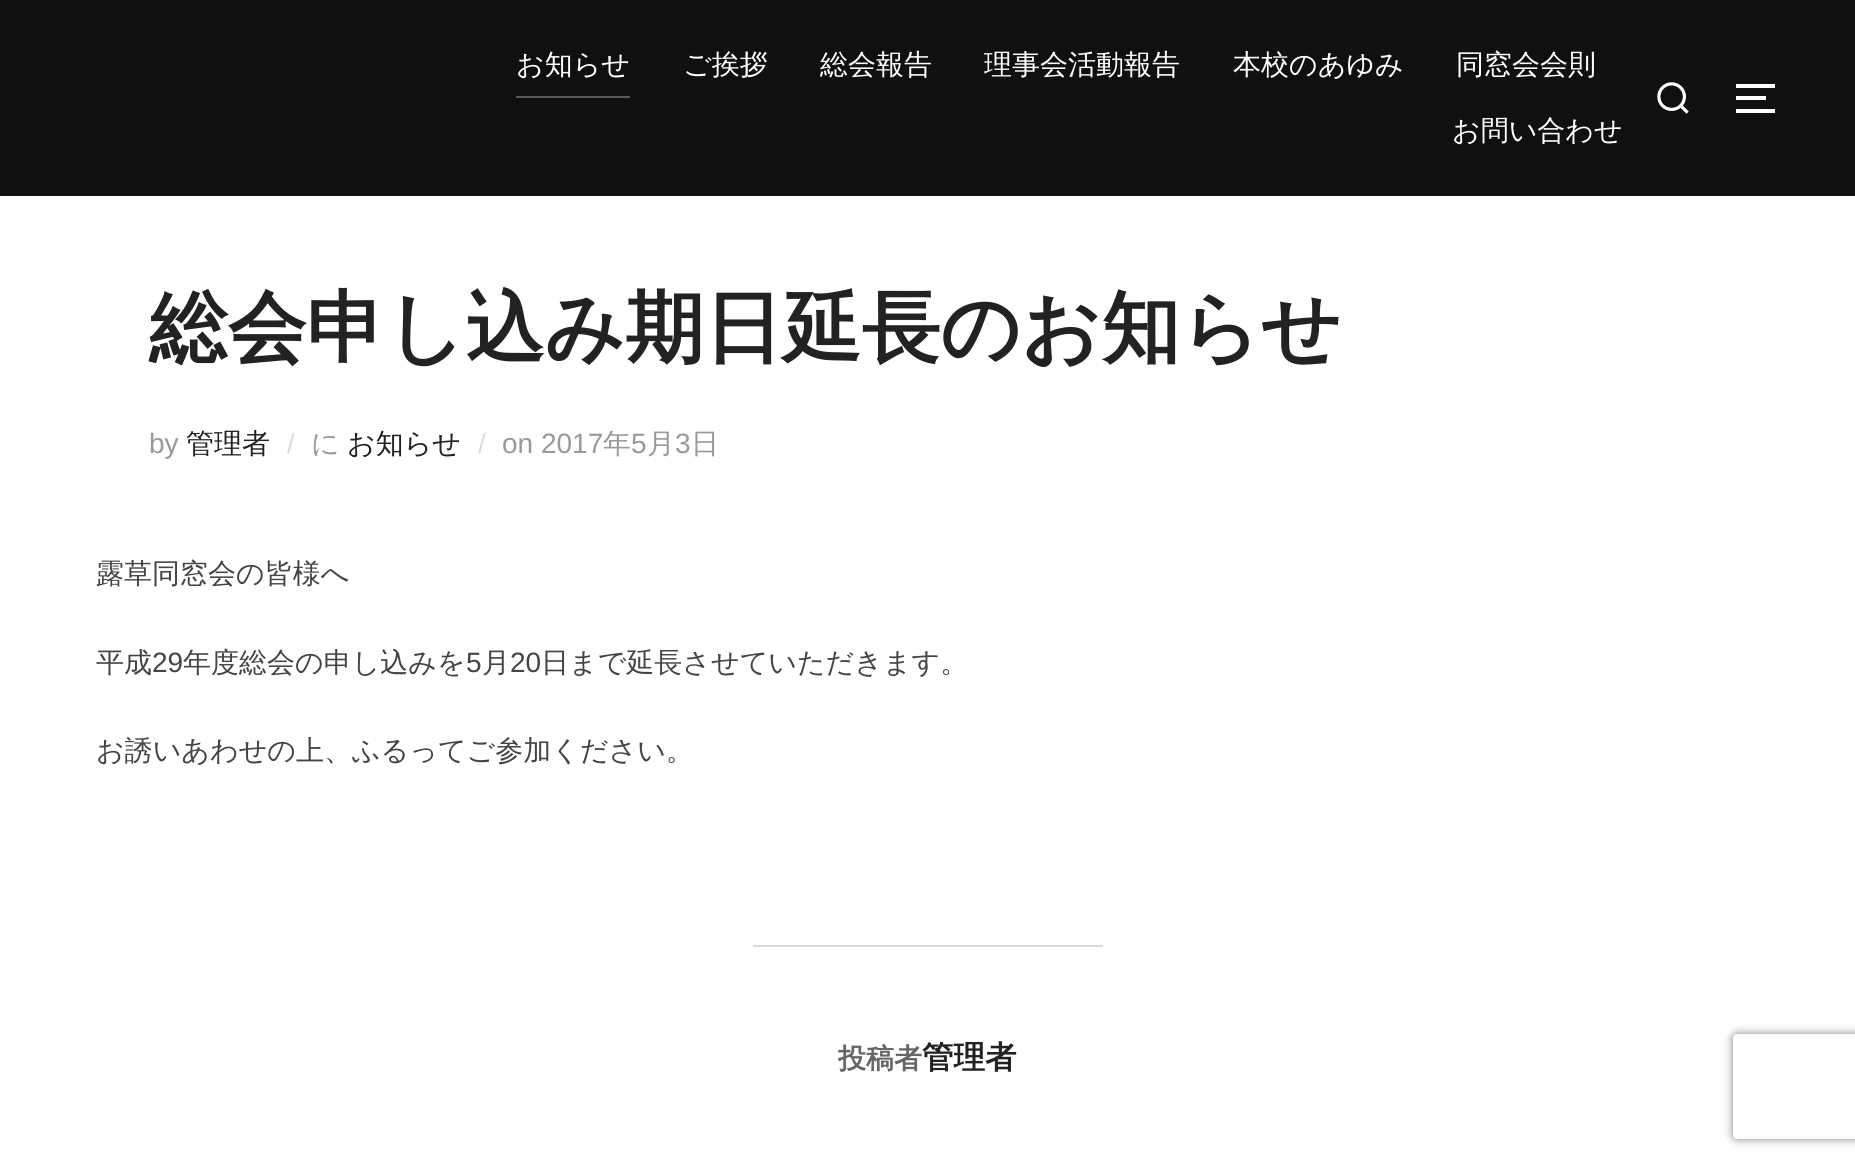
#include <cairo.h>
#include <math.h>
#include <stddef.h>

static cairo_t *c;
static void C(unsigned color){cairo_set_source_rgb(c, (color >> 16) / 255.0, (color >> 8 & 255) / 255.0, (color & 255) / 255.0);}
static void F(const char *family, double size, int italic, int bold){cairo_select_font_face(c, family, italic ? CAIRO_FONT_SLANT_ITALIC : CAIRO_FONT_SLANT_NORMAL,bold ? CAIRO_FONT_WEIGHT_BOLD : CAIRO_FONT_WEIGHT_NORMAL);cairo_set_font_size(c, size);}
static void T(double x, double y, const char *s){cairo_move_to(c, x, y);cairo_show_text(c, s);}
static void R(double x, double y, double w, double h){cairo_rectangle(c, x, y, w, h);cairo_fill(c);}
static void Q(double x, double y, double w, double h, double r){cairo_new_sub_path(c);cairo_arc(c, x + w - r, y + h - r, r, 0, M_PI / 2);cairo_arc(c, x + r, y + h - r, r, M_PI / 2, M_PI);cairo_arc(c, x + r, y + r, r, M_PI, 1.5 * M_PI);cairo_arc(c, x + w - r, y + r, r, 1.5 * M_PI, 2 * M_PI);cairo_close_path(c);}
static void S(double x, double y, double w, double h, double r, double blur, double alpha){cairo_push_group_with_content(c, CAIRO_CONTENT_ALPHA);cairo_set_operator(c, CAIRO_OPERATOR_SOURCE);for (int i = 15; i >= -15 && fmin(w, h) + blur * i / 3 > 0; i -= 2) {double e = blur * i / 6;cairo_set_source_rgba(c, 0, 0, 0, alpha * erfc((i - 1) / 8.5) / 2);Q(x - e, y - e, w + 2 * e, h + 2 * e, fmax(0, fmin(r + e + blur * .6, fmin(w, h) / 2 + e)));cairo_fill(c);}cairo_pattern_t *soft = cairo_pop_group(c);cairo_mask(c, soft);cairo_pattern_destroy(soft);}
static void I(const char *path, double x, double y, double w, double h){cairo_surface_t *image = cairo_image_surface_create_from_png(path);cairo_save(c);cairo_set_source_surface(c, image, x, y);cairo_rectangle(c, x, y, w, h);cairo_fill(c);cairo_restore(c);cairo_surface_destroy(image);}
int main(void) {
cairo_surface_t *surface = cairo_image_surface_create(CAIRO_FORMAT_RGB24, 1855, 1163);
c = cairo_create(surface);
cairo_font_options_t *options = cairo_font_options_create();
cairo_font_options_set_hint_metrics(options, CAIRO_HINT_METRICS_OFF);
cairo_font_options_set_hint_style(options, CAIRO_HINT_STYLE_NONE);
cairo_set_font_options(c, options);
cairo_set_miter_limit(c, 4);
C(0xffffff);
cairo_paint(c);
C(0x101010);
R(0,0,1855,196);
C(0x585858);
R(516,96,114,2);
F("WenQuanYi Zen Hei Medium",28,0,0);
C(0xffffff);
T(516,74,"お知らせ");
T(683,74,"ご挨拶");
T(820,74,"総会報告");
T(984,74,"理事会活動報告");
T(1233,74,"本校のあゆみ");
T(1456,74,"同窓会会則");
T(1452,140,"お問い合わせ");
I("1.png",1657,82,32,32);
R(1736,84,39,4);
R(1736,96,30,4);
R(1736,109,39,4);
F("WenQuanYi Zen Hei",78.75,0,1);
C(0x222222);
T(149,355,"総会申し込み期日延長のお知らせ");
F("Liberation Sans",28,0,0);
C(0x999999);
T(149,453,"by");
F("WenQuanYi Zen Hei Medium",28,0,0);
C(0x222222);
T(186,453,"管理者");
F("Liberation Sans",28,0,0);
C(0xdbdddd);
T(287,453,"/");
F("WenQuanYi Zen Hei Medium",28,0,0);
C(0x999999);
T(311,453,"に");
C(0x222222);
T(347,453,"お知らせ");
F("Liberation Sans",28,0,0);
C(0xdbdddd);
T(478,453,"/");
C(0x999999);
T(502,453,"on 2017");
F("WenQuanYi Zen Hei Medium",28,0,0);
T(603,453,"年");
F("Liberation Sans",28,0,0);
T(631,453,"5");
F("WenQuanYi Zen Hei Medium",28,0,0);
T(647,453,"月");
F("Liberation Sans",28,0,0);
T(675,453,"3");
F("WenQuanYi Zen Hei Medium",28,0,0);
T(691,453,"日");
C(0x444444);
T(96,583,"露草同窓会の皆様へ");
T(96,672,"平成");
F("Liberation Sans",28,0,0);
T(152,672,"29");
F("WenQuanYi Zen Hei Medium",28,0,0);
T(183,672,"年度総会の申し込みを");
F("Liberation Sans",28,0,0);
T(466,672,"5");
F("WenQuanYi Zen Hei Medium",28,0,0);
T(482,672,"月");
F("Liberation Sans",28,0,0);
T(510,672,"20");
F("WenQuanYi Zen Hei Medium",28,0,0);
T(541,672,"日まで延長させていただきます。");
T(96,760,"お誘いあわせの上、ふるってご参加ください。");
C(0xdbdbdb);
R(753,945,350,2);
F("WenQuanYi Zen Hei",28,0,1);
C(0x666666);
T(838,1068,"投稿者");
F("WenQuanYi Zen Hei",31.5,0,1);
C(0x222222);
T(922,1068,"管理者");
cairo_save(c);
cairo_set_fill_rule(c,CAIRO_FILL_RULE_EVEN_ODD);
cairo_new_path(c);
cairo_move_to(c,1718,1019);
cairo_line_to(c,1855,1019);
cairo_line_to(c,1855,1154);
cairo_line_to(c,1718,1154);
cairo_close_path(c);
cairo_move_to(c,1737,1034);
cairo_line_to(c,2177,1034);
cairo_curve_to(c,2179,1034,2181,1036,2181,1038);
cairo_line_to(c,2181,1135);
cairo_curve_to(c,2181,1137,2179,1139,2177,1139);
cairo_line_to(c,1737,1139);
cairo_curve_to(c,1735,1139,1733,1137,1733,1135);
cairo_line_to(c,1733,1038);
cairo_curve_to(c,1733,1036,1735,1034,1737,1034);
cairo_close_path(c);
cairo_clip(c);
C(0x808080);
S(1733,1034,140,105,4,4.5,1);
cairo_restore(c);
cairo_surface_write_to_png(surface, "o.png");
cairo_font_options_destroy(options);
cairo_destroy(c);
cairo_surface_destroy(surface);
return 0;
}
